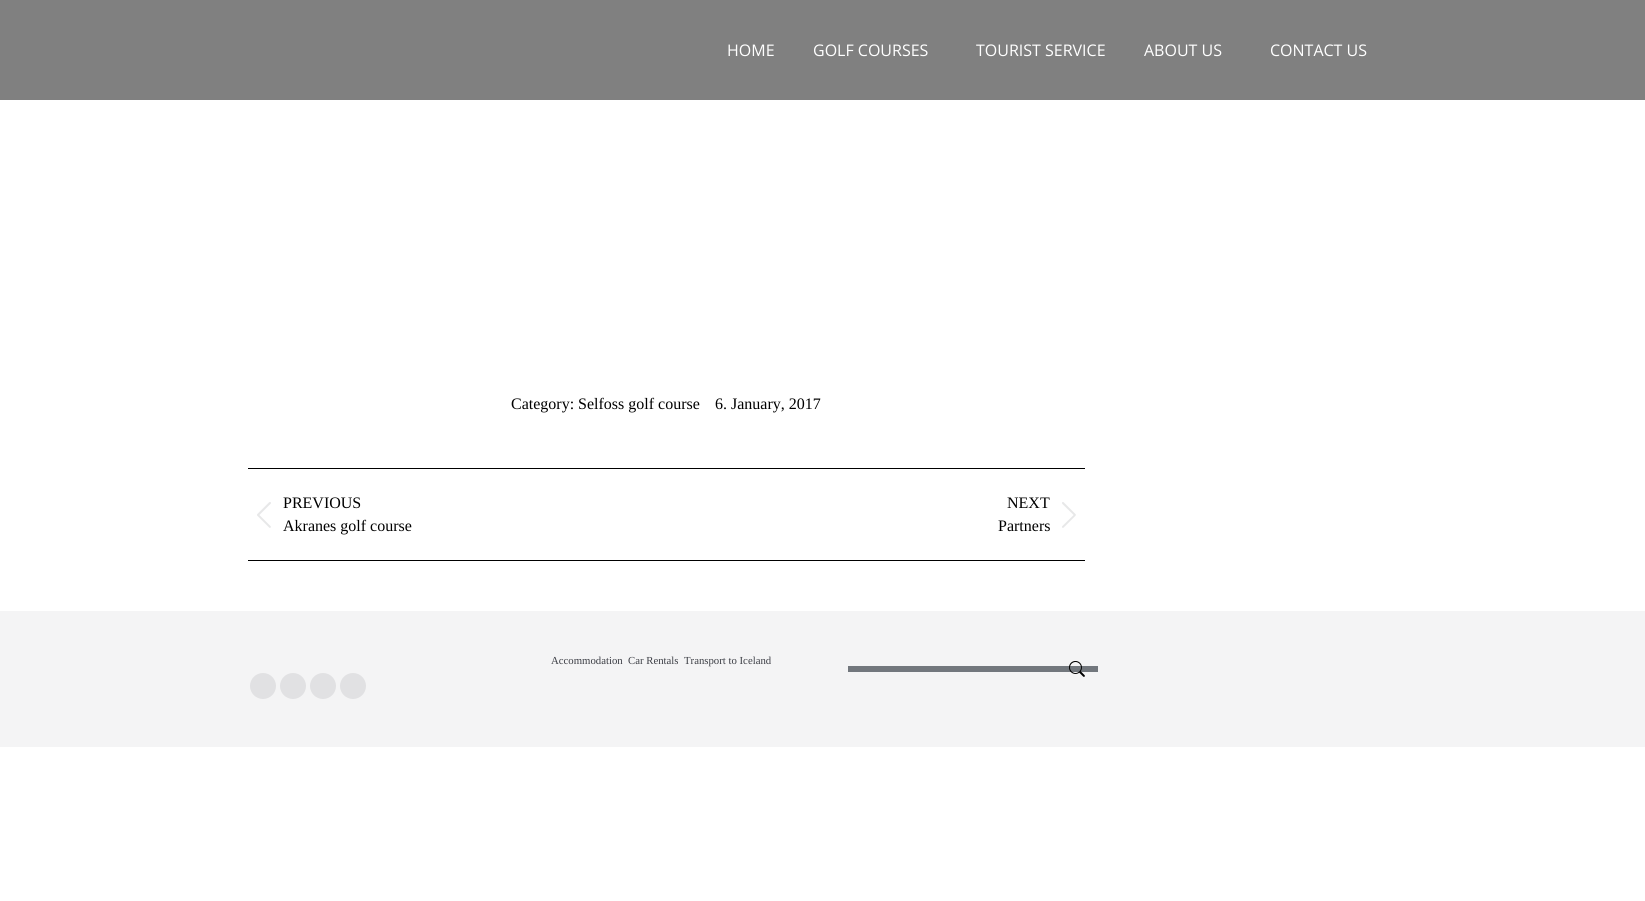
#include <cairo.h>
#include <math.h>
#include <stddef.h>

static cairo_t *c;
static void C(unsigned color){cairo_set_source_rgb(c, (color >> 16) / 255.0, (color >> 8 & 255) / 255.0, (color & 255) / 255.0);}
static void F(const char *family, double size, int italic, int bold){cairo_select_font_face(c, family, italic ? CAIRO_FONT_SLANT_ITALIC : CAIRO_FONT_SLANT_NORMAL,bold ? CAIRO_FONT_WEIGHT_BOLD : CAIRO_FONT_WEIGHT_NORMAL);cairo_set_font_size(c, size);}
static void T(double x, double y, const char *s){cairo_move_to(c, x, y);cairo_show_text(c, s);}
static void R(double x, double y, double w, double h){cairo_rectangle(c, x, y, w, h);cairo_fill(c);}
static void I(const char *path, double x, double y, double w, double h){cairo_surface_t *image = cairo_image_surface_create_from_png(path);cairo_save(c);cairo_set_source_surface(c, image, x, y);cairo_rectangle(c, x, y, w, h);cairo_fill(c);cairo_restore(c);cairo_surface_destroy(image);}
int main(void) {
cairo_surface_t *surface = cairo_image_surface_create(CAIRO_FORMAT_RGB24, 1645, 901);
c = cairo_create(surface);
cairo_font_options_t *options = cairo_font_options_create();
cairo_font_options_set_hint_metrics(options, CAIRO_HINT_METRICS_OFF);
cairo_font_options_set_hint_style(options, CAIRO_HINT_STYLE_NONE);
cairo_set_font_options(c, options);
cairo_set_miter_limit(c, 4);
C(0xffffff);
cairo_paint(c);
C(0x808080);
R(0,0,1645,100);
F("Open Sans",16,0,0);
C(0xffffff);
T(727,56,"HOME");
T(813,56,"GOLF COURSES");
T(976,56,"TOURIST SERVICE");
T(1144,56,"ABOUT US");
T(1270,56,"CONTACT US");
F("Liberation Serif",16,0,0);
C(0x000000);
T(511,409,"Category: Selfoss golf course");
T(715,409,"6. January, 2017");
R(248,468,837,1);
R(248,560,837,1);
I("1.png",257,502,14,26);
T(283,508,"PREVIOUS");
T(283,531,"Akranes golf course");
T(1007,508,"NEXT");
I("2.png",1062,502,14,26);
T(998,531,"Partners");
C(0xf4f4f5);
R(0,611,1645,136);
F("Liberation Serif",10.75,0,0);
C(0x3c3e45);
T(551,664,"Accommodation");
T(628,664,"Car Rentals");
T(684,664,"Transport to Iceland");
C(0x72777d);
R(848,666,250,6);
I("3.png",1069,661,16,16);
C(0xe1e1e3);
cairo_arc(c,263,686,13,0,2 * M_PI);
cairo_fill(c);
cairo_arc(c,293,686,13,0,2 * M_PI);
cairo_fill(c);
cairo_arc(c,323,686,13,0,2 * M_PI);
cairo_fill(c);
cairo_arc(c,353,686,13,0,2 * M_PI);
cairo_fill(c);
cairo_surface_write_to_png(surface, "o.png");
cairo_font_options_destroy(options);
cairo_destroy(c);
cairo_surface_destroy(surface);
return 0;
}
